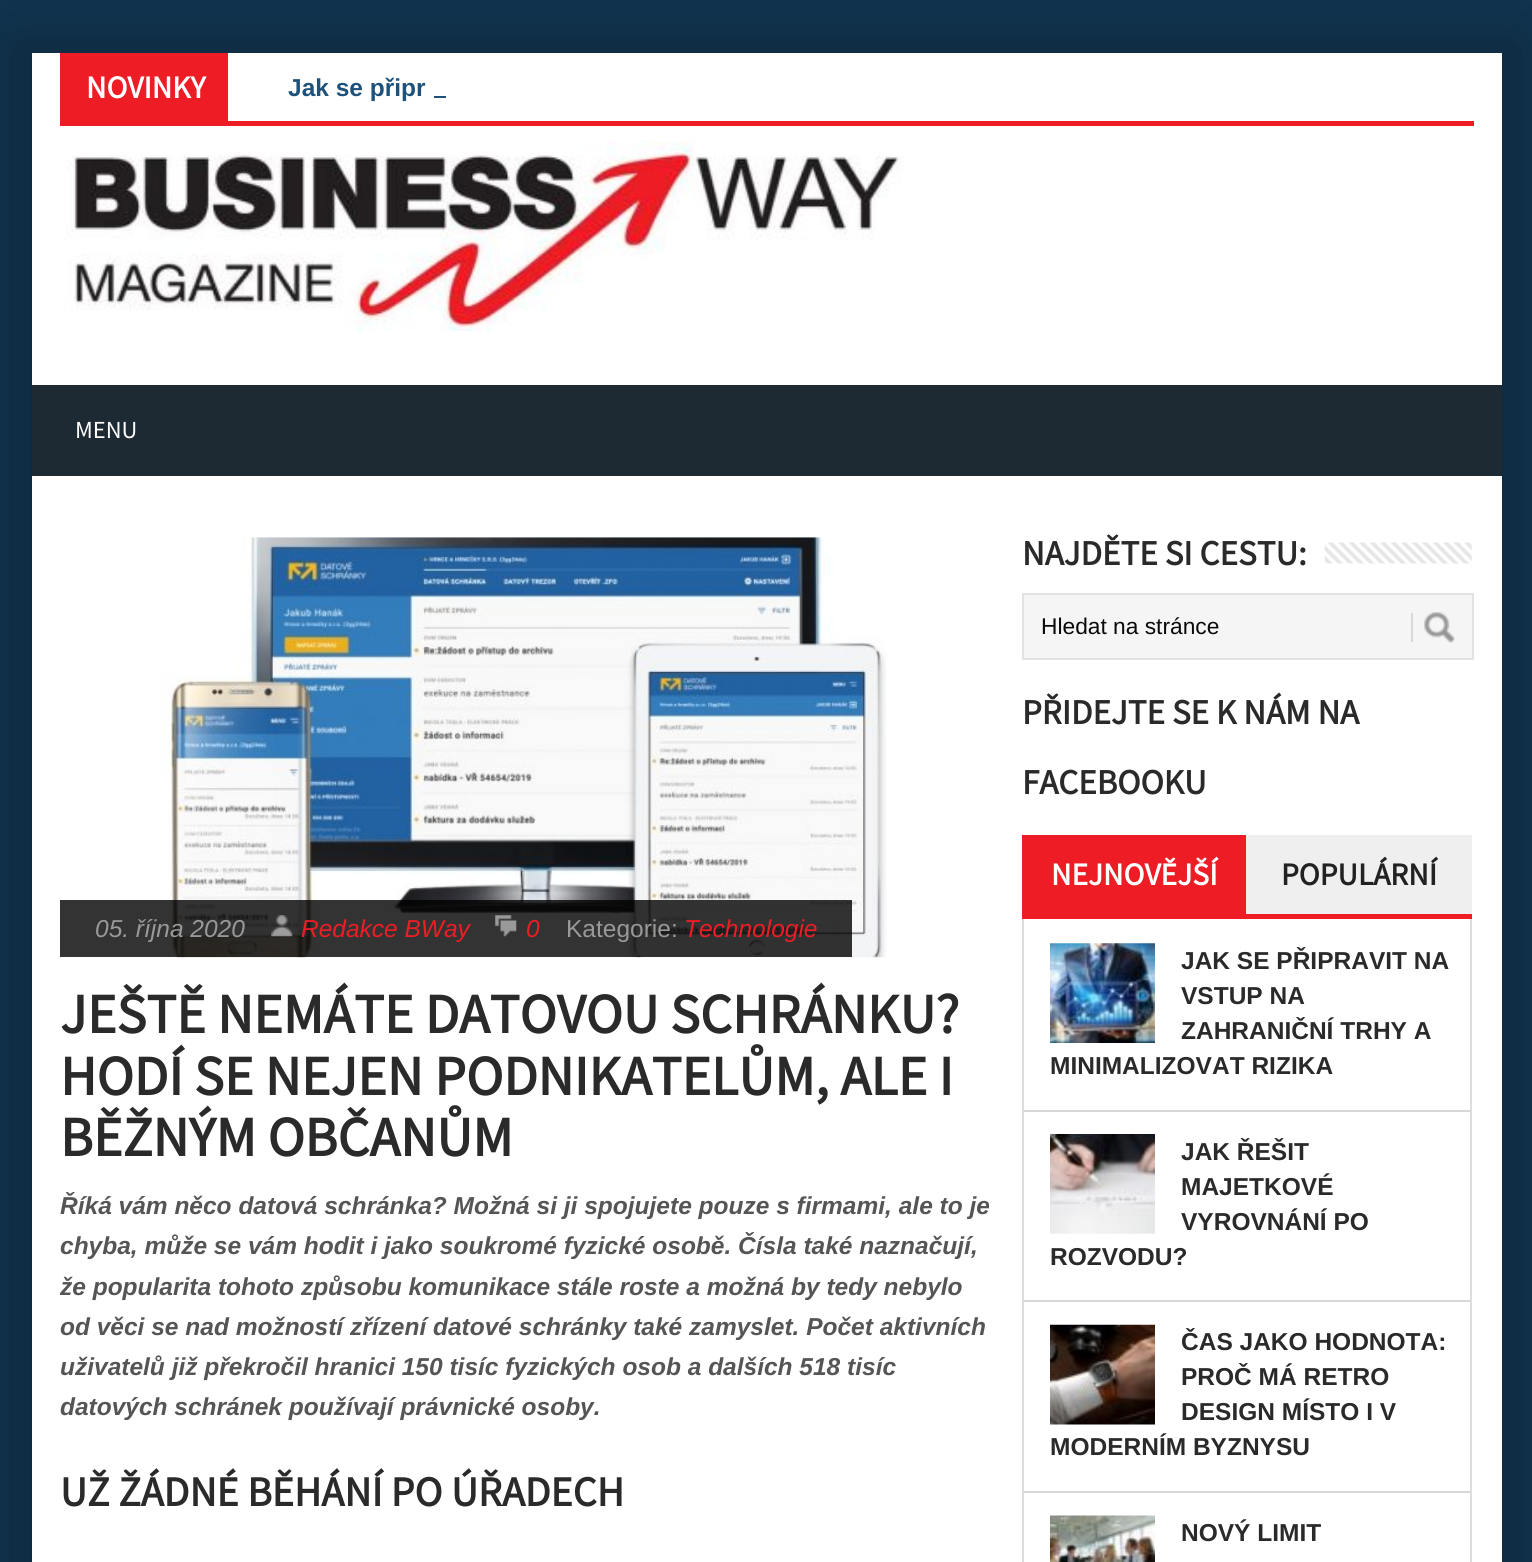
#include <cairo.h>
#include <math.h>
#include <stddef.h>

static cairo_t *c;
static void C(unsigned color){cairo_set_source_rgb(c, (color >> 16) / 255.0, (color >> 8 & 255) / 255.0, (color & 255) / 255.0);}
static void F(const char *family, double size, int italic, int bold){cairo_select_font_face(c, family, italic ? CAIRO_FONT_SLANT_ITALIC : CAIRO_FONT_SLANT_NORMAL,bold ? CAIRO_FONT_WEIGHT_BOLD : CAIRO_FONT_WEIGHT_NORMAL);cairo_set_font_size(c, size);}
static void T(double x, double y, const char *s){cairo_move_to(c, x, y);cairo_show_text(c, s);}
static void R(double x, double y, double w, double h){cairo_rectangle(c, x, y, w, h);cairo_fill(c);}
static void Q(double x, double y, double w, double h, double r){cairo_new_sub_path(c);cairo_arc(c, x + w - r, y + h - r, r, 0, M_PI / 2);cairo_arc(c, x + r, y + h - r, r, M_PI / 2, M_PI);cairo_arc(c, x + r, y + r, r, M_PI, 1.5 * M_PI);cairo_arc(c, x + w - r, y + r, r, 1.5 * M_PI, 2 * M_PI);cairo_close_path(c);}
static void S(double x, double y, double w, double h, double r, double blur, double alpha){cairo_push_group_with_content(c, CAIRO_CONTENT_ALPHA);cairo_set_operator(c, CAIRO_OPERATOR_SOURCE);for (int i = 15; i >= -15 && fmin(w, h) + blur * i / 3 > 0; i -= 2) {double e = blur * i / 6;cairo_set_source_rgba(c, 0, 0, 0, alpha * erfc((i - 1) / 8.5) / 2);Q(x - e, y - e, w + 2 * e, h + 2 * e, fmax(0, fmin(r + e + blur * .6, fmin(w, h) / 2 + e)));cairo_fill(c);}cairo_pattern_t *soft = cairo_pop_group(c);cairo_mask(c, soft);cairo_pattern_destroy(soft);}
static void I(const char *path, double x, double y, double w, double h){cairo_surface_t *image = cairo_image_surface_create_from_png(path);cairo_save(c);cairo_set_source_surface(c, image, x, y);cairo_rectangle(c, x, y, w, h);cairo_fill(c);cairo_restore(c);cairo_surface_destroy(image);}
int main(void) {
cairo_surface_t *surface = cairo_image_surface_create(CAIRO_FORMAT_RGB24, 1532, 1562);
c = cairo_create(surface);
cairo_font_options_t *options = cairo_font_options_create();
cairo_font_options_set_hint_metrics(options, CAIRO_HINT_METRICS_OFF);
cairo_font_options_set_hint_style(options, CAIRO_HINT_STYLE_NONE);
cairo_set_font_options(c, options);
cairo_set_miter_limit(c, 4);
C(0x11334e);
cairo_paint(c);
C(0x000000);
S(14,42,1505,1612,0,30.5,.2);
C(0xffffff);
R(32,53,1470,1509);
C(0xee1c25);
R(60,121,1414,5);
R(60,53,168,68);
F("Source Sans Pro",31.5,0,1);
C(0xffffff);
T(86,98,"NOVINKY");
F("Liberation Sans",24.5,0,1);
C(0x1f527b);
T(288,96,"Jak se připr");
R(434,96,12,2);
I("1.png",65,142,838,189);
C(0x1d2933);
R(32,385,1470,91);
F("Source Sans Pro",24.5,0,0);
C(0xffffff);
T(75,438,"MENU");
I("2.png",159,537,728,421);
cairo_set_source_rgba(c,0,0,0,0.8);
R(60,900,792,57);
F("Liberation Sans",24.5,1,0);
C(0x999999);
T(95,937,"05. října 2020");
I("3.png",271,915,22,22);
C(0xee1c25);
T(301,937,"Redakce BWay");
I("4.png",495,915,22,22);
T(526,937,"0");
F("Liberation Sans",24.5,0,0);
C(0x999999);
T(566,937,"Kategorie:");
F("Liberation Sans",24.5,1,0);
C(0xee1c25);
T(684,937,"Technologie");
F("Source Sans Pro",56,0,1);
C(0x2a2a2a);
T(60,1033,"JEŠTĚ NEMÁTE DATOVOU SCHRÁNKU?");
T(60,1095,"HODÍ SE NEJEN PODNIKATELŮM, ALE I");
T(60,1156,"BĚŽNÝM OBČANŮM");
F("Liberation Sans",24.5,1,1);
C(0x555555);
T(60,1214,"Říká vám něco datová schránka? Možná si ji spojujete pouze s firmami, ale to je");
T(60,1254,"chyba, může se vám hodit i jako soukromé fyzické osobě. Čísla také naznačují,");
T(60,1295,"že popularita tohoto způsobu komunikace stále roste a možná by tedy nebylo");
T(60,1335,"od věci se nad možností zřízení datové schránky také zamyslet. Počet aktivních");
T(60,1375,"uživatelů již překročil hranici 150 tisíc fyzických osob a dalších 518 tisíc");
T(60,1415,"datových schránek používají právnické osoby.");
F("Source Sans Pro",42,0,1);
C(0x2a2a2a);
T(60,1506,"UŽ ŽÁDNÉ BĚHÁNÍ PO ÚŘADECH");
F("Source Sans Pro",35,0,1);
T(1022,565,"NAJDĚTE SI CESTU:");
I("5.png",1324,542,148,22);
C(0xf5f5f5);
cairo_rectangle(c,1023,594,450,65);
cairo_fill_preserve(c);
C(0xe2e2e2);
cairo_stroke(c);
F("Liberation Sans",22.75,0,0);
C(0x0a0a0a);
T(1041,634,"Hledat na stránce");
I("6.png",1424,612,31,31);
C(0xd8d8d8);
R(1411,613,2,29);
F("Source Sans Pro",35,0,1);
C(0x2a2a2a);
T(1022,724,"PŘIDEJTE SE K NÁM NA");
T(1022,794,"FACEBOOKU");
C(0xee1c25);
R(1022,914,450,5);
R(1022,835,224,79);
F("Source Sans Pro",31.5,0,1);
C(0xffffff);
T(1051,885,"NEJNOVĚJŠÍ");
C(0xefefef);
R(1246,835,226,79);
C(0x222222);
T(1281,885,"POPULÁRNÍ");
C(0xdddddd);
R(1470,919,2,643);
R(1022,919,2,643);
C(0xd7d7d7);
R(1024,1110,446,2);
I("7.png",1050,943,105,100);
F("Liberation Sans",24.5,0,1);
C(0x2a2a2a);
T(1181,969,"JAK SE PŘIPRAVIT NA");
T(1181,1004,"VSTUP NA");
T(1181,1039,"ZAHRANIČNÍ TRHY A");
T(1050,1074,"MINIMALIZOVAT RIZIKA");
C(0xd7d7d7);
R(1024,1300,446,2);
I("8.png",1050,1134,105,100);
C(0x2a2a2a);
T(1181,1160,"JAK ŘEŠIT");
T(1181,1195,"MAJETKOVÉ");
T(1181,1230,"VYROVNÁNÍ PO");
T(1050,1265,"ROZVODU?");
C(0xd7d7d7);
R(1024,1491,446,2);
I("9.png",1050,1324,105,101);
C(0x2a2a2a);
T(1181,1350,"ČAS JAKO HODNOTA:");
T(1181,1385,"PROČ MÁ RETRO");
T(1181,1420,"DESIGN MÍSTO I V");
T(1050,1455,"MODERNÍM BYZNYSU");
I("10.png",1050,1515,105,47);
T(1181,1541,"NOVÝ LIMIT");
cairo_surface_write_to_png(surface, "o.png");
cairo_font_options_destroy(options);
cairo_destroy(c);
cairo_surface_destroy(surface);
return 0;
}
